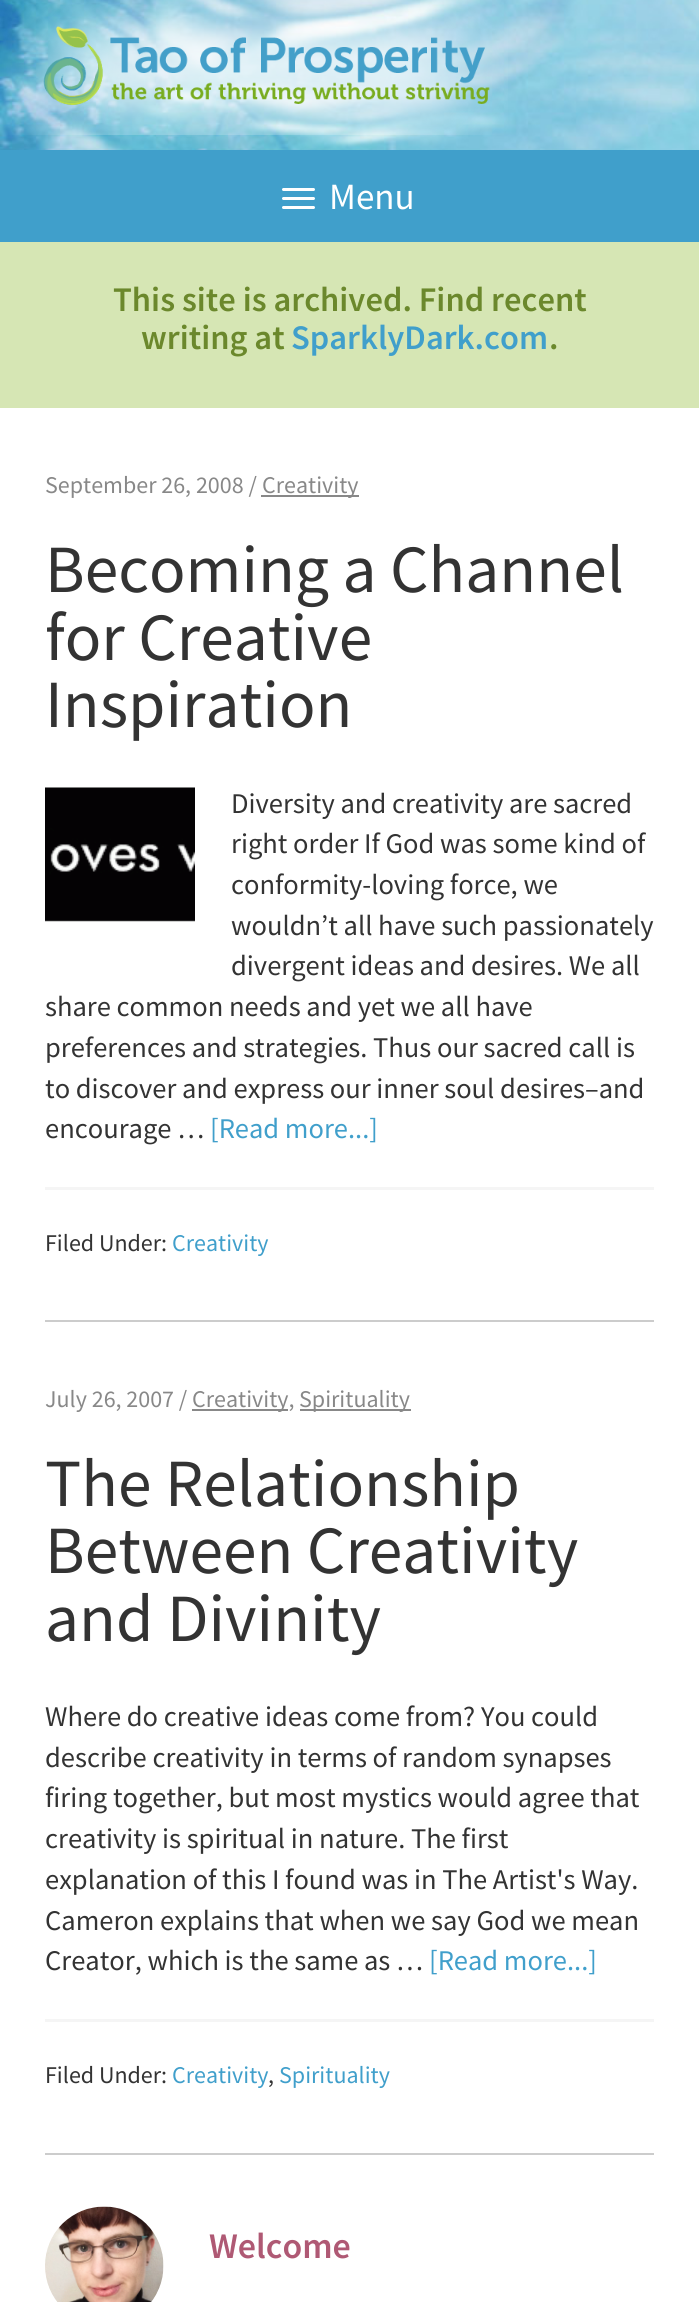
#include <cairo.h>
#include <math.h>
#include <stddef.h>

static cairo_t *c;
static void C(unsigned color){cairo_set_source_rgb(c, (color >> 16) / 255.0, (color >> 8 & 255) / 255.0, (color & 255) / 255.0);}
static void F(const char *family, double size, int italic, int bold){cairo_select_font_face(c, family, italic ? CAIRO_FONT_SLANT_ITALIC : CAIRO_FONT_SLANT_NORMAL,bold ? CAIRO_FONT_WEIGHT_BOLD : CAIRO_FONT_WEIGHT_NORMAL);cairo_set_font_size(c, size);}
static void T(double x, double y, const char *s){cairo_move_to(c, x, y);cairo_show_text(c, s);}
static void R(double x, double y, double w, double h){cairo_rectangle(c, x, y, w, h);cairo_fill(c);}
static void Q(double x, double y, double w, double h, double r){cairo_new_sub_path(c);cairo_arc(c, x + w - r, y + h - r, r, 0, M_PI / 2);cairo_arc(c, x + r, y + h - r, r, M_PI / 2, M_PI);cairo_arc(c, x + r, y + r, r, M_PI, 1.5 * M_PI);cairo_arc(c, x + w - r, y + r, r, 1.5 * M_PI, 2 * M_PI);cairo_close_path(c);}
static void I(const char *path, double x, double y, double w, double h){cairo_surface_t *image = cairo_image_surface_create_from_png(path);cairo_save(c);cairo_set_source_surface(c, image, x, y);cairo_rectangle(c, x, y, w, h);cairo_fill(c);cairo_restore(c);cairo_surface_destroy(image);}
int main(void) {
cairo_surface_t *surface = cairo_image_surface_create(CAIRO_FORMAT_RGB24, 699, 2302);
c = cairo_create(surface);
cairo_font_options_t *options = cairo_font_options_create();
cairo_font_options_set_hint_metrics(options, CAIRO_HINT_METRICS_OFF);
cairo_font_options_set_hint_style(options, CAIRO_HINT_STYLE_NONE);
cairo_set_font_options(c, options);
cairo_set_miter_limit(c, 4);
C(0xffffff);
cairo_paint(c);
I("1.png",0,0,699,150);
I("2.png",0,0,508,135);
C(0x409fcb);
R(0,150,699,92);
C(0xffffff);
Q(282,188,33,3,1.5);
cairo_fill(c);
Q(282,197,33,3,1.5);
cairo_fill(c);
Q(282,206,33,3,1.5);
cairo_fill(c);
F("Source Sans Pro",37,0,0);
T(329,209,"Menu");
C(0xd6e6b4);
R(0,242,699,166);
F("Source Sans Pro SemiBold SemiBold",34.5,0,0);
C(0x6b882c);
T(113,311,"This site is archived. Find recent");
T(141,349,"writing at");
C(0x409fcb);
T(291,349,"SparklyDark.com");
C(0x6b882c);
T(549,349,".");
C(0xcccccc);
R(45,1320,609,2);
F("Source Sans Pro",24,0,0);
C(0x888888);
T(45,493,"September 26, 2008 /");
R(261,495,98,2);
T(262,493,"Creativity");
F("Source Sans Pro",67.5,0,0);
C(0x333333);
T(45,592,"Becoming a Channel");
T(45,660,"for Creative");
T(45,727,"Inspiration");
I("3.png",45,787,150,135);
F("Source Sans Pro",28.5,0,0);
T(231,813,"Diversity and creativity are sacred");
T(231,853,"right order If God was some kind of");
T(231,894,"conformity-loving force, we");
T(231,935,"wouldn’t all have such passionately");
T(231,975,"divergent ideas and desires. We all");
T(45,1016,"share common needs and yet we all have");
T(45,1057,"preferences and strategies. Thus our sacred call is");
T(45,1098,"to discover and express our inner soul desires–and");
T(45,1138,"encourage …");
C(0x409fcb);
T(210,1138,"[Read more...]");
C(0xf5f5f5);
R(45,1187,609,3);
F("Source Sans Pro",24,0,0);
C(0x333333);
T(45,1251,"Filed Under:");
C(0x409fcb);
T(172,1251,"Creativity");
C(0xcccccc);
R(45,2153,609,2);
C(0x888888);
T(45,1407,"July 26, 2007 /");
R(192,1409,96,2);
T(192,1407,"Creativity,");
R(300,1409,111,2);
T(299,1407,"Spirituality");
F("Source Sans Pro",67.5,0,0);
C(0x333333);
T(45,1506,"The Relationship");
T(45,1573,"Between Creativity");
T(45,1641,"and Divinity");
F("Source Sans Pro",28.5,0,0);
T(45,1726,"Where do creative ideas come from? You could");
T(45,1767,"describe creativity in terms of random synapses");
T(45,1807,"firing together, but most mystics would agree that");
T(45,1848,"creativity is spiritual in nature. The first");
T(45,1889,"explanation of this I found was in The Artist's Way.");
T(45,1930,"Cameron explains that when we say God we mean");
T(45,1970,"Creator, which is the same as …");
C(0x409fcb);
T(429,1970,"[Read more...]");
C(0xf5f5f5);
R(45,2019,609,3);
F("Source Sans Pro",24,0,0);
C(0x333333);
T(45,2083,"Filed Under:");
C(0x409fcb);
T(172,2083,"Creativity");
C(0x333333);
T(268,2083,",");
C(0x409fcb);
T(279,2083,"Spirituality");
I("4.png",45,2206,119,96);
F("Source Sans Pro SemiBold SemiBold",36,0,0);
C(0xaf5974);
T(209,2258,"Welcome");
cairo_surface_write_to_png(surface, "o.png");
cairo_font_options_destroy(options);
cairo_destroy(c);
cairo_surface_destroy(surface);
return 0;
}
